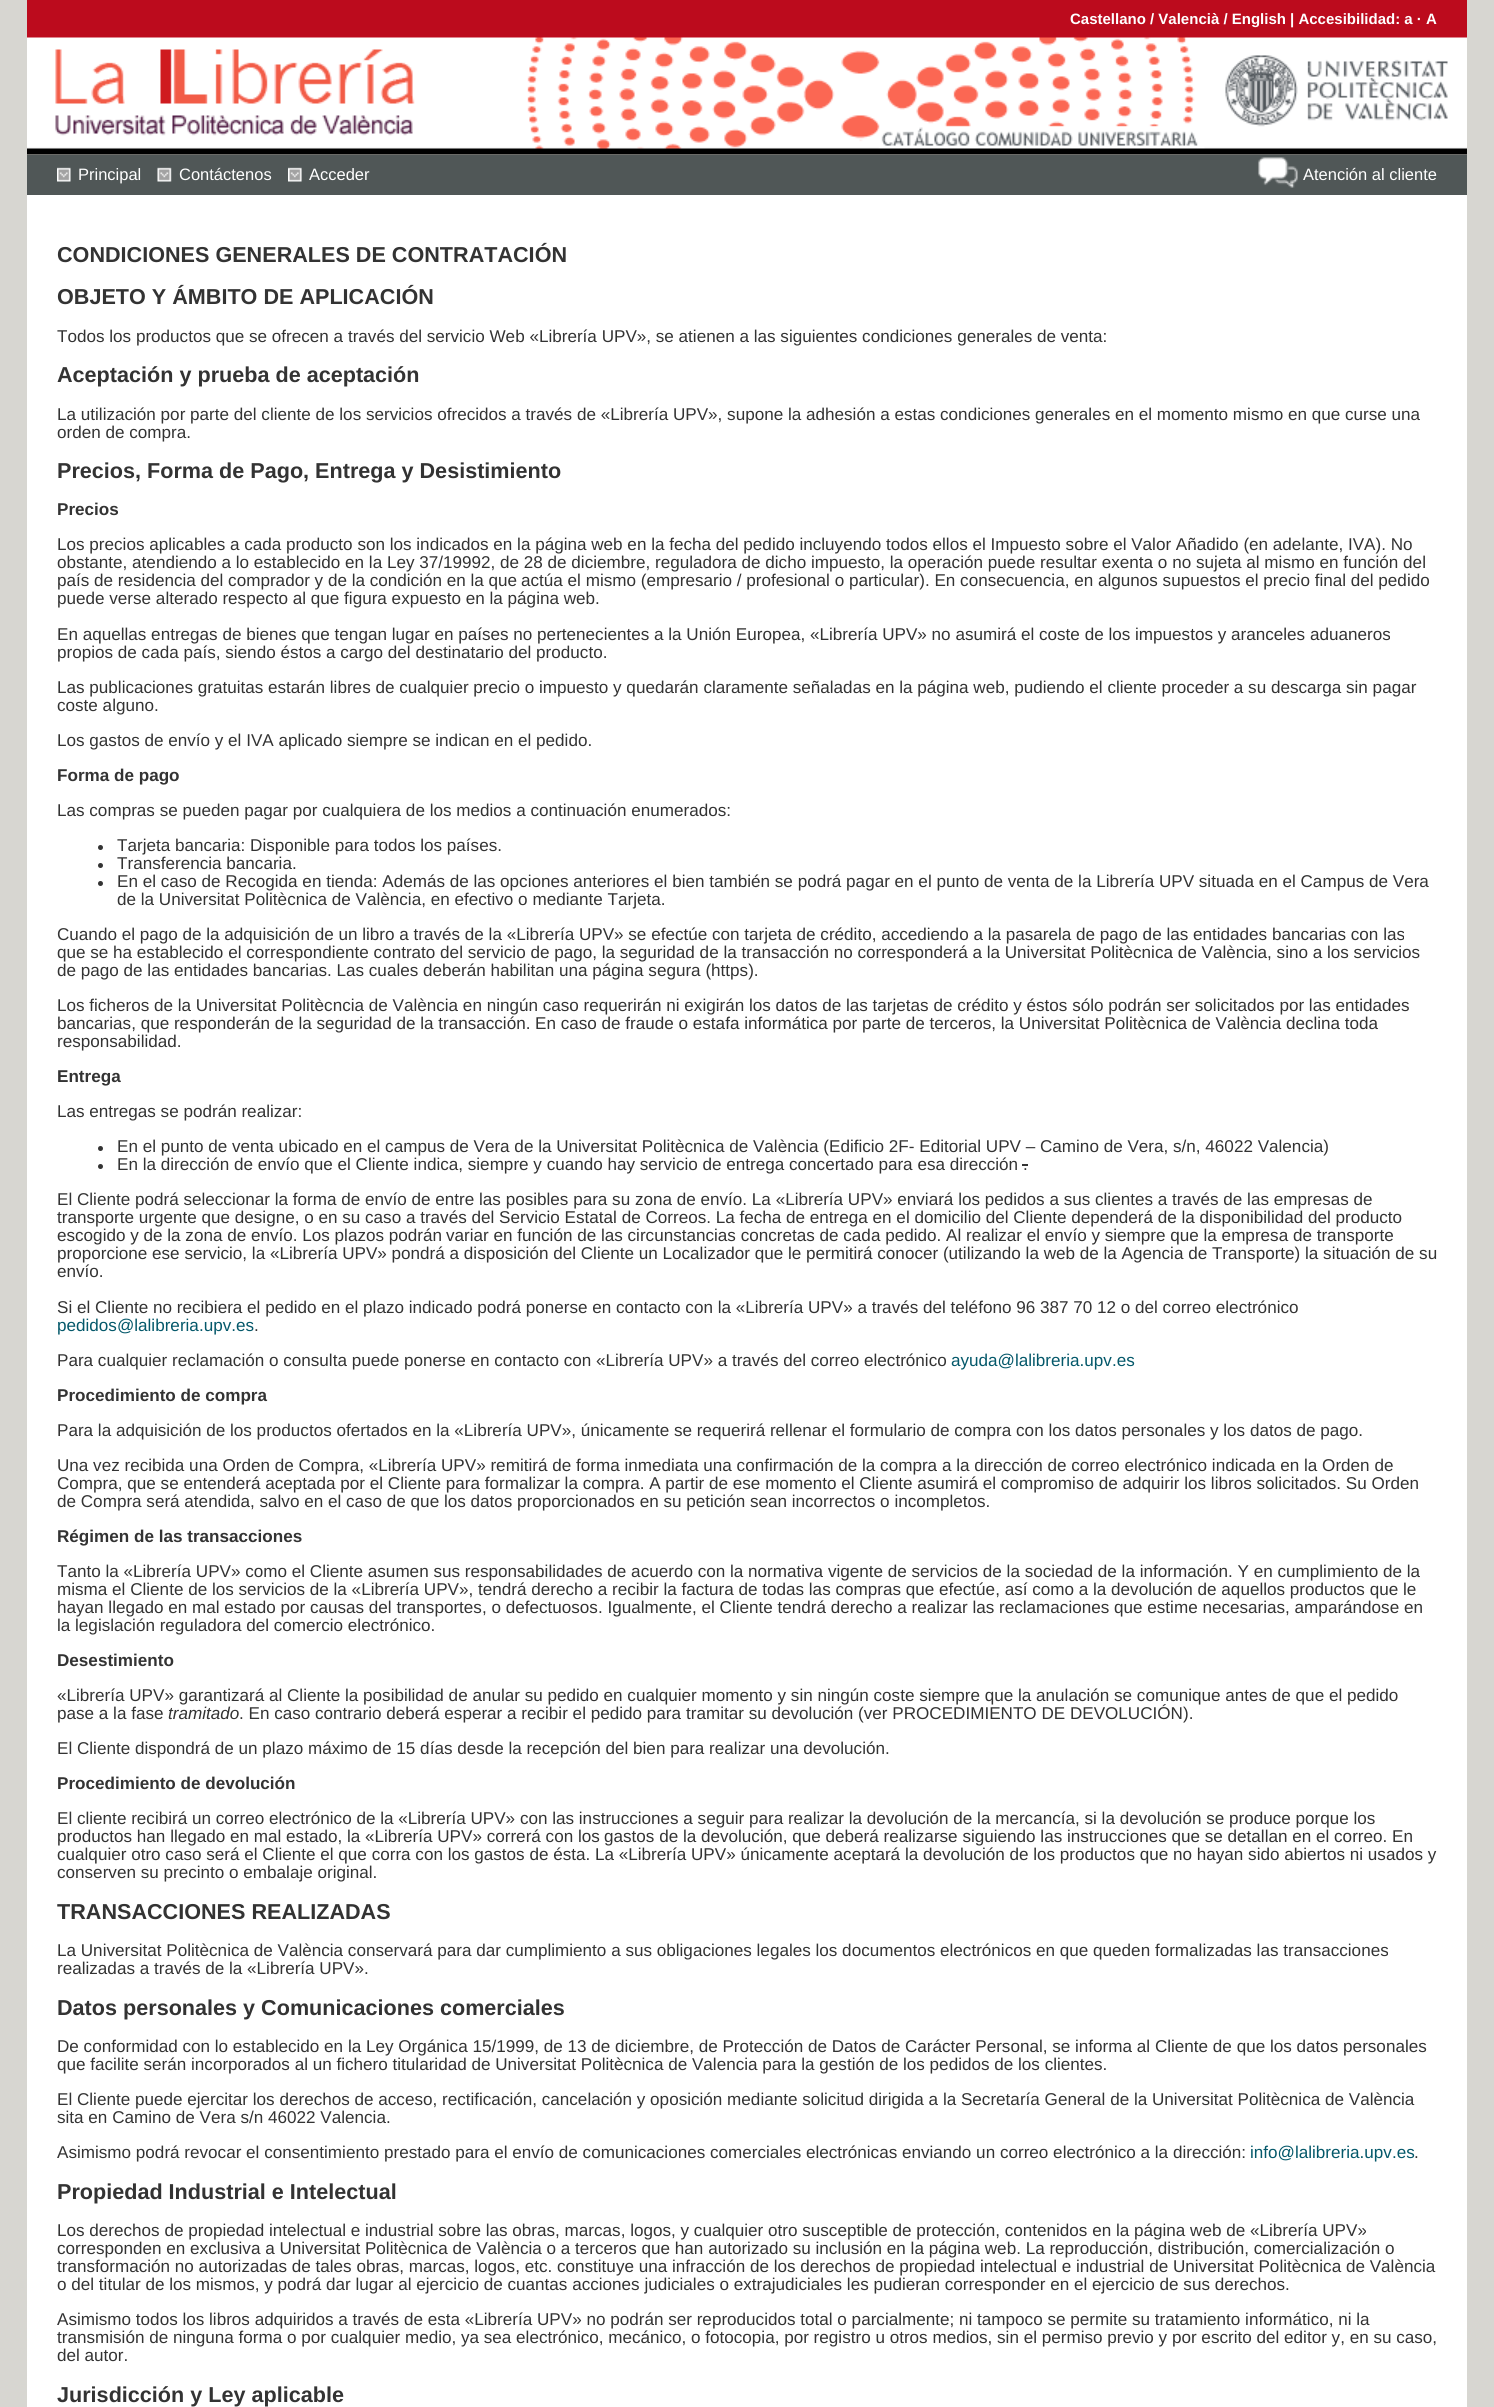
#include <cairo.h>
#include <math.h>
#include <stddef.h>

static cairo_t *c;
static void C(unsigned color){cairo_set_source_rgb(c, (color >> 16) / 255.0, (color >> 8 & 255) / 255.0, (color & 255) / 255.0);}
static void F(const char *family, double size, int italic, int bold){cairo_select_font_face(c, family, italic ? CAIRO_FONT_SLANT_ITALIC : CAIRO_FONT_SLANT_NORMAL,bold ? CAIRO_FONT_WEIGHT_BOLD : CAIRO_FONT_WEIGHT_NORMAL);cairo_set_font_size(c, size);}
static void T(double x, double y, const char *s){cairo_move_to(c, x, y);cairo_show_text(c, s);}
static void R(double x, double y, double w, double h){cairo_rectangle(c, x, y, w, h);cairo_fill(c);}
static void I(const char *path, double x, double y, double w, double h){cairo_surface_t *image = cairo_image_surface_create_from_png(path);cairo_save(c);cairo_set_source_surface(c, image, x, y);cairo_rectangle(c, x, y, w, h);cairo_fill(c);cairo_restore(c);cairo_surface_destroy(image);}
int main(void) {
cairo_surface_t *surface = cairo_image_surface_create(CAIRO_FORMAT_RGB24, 1494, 2407);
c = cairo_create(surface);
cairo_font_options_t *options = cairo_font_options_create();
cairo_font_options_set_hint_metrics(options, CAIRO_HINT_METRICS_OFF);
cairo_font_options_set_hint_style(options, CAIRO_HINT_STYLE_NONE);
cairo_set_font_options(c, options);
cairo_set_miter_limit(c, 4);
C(0xd7d6d1);
cairo_paint(c);
C(0xbc0b1d);
R(27,0,1440,38);
F("Liberation Sans",15,0,1);
C(0xffffff);
T(1070,24,"Castellano / Valencià / English | Accesibilidad: a · A");
I("1.png",27,37,1440,118);
C(0x505757);
R(27,155,1440,40);
I("2.png",57,167,14,15);
F("Liberation Sans",16.5,0,0);
C(0xffffff);
T(78,180,"Principal");
I("3.png",157,167,15,15);
T(179,180,"Contáctenos");
I("4.png",288,167,14,15);
T(309,180,"Acceder");
I("5.png",1258,157,40,31);
T(1303,180,"Atención al cliente");
R(27,195,1440,2212);
F("Liberation Sans",21.6,0,1);
C(0x333333);
T(57,262,"CONDICIONES GENERALES DE CONTRATACIÓN");
T(57,304,"OBJETO Y ÁMBITO DE APLICACIÓN");
F("Liberation Sans",17.1,0,0);
T(57,342,"Todos los productos que se ofrecen a través del servicio Web «Librería UPV», se atienen a las siguientes condiciones generales de venta:");
F("Liberation Sans",21.6,0,1);
T(57,382,"Aceptación y prueba de aceptación");
F("Liberation Sans",17.1,0,0);
T(57,420,"La utilización por parte del cliente de los servicios ofrecidos a través de «Librería UPV», supone la adhesión a estas condiciones generales en el momento mismo en que curse una");
T(57,438,"orden de compra.");
F("Liberation Sans",21.6,0,1);
T(57,478,"Precios, Forma de Pago, Entrega y Desistimiento");
F("Liberation Sans",17.1,0,1);
T(57,515,"Precios");
F("Liberation Sans",17.1,0,0);
T(57,550,"Los precios aplicables a cada producto son los indicados en la página web en la fecha del pedido incluyendo todos ellos el Impuesto sobre el Valor Añadido (en adelante, IVA). No");
T(57,568,"obstante, atendiendo a lo establecido en la Ley 37/19992, de 28 de diciembre, reguladora de dicho impuesto, la operación puede resultar exenta o no sujeta al mismo en función del");
T(57,586,"país de residencia del comprador y de la condición en la que");
T(521,586,"actúa el mismo (empresario / profesional o particular). En consecuencia, en algunos supuestos el precio final del pedido");
T(57,604,"puede verse alterado respecto al que figura expuesto en la página web.");
T(57,640,"En aquellas entregas de bienes que tengan lugar en países no pertenecientes a la Unión Europea, «Librería UPV» no asumirá el coste de los impuestos y aranceles aduaneros");
T(57,658,"propios de cada país, siendo éstos a cargo del destinatario del producto.");
T(57,693,"Las publicaciones gratuitas estarán libres de cualquier precio o impuesto y quedarán claramente señaladas en la página web, pudiendo el cliente proceder a su descarga sin pagar");
T(57,711,"coste alguno.");
T(57,746,"Los gastos de envío y el IVA aplicado siempre se indican en el pedido.");
F("Liberation Sans",17.1,0,1);
T(57,781,"Forma de pago");
F("Liberation Sans",17.1,0,0);
T(57,816,"Las compras se pueden pagar por cualquiera de los medios a continuación enumerados:");
cairo_new_path(c);
cairo_arc(c,100.5,847.5,2.5,0,2 * M_PI);
cairo_fill(c);
T(117,851,"Tarjeta bancaria: Disponible para todos los países.");
cairo_new_path(c);
cairo_arc(c,100.5,865.5,2.5,0,2 * M_PI);
cairo_fill(c);
T(117,869,"Transferencia bancaria.");
cairo_new_path(c);
cairo_arc(c,100.5,883.5,2.5,0,2 * M_PI);
cairo_fill(c);
T(117,887,"En el caso de Recogida en tienda: Además de las opciones anteriores el bien también se podrá pagar en el punto de venta de la Librería UPV situada en el Campus de Vera");
T(117,905,"de la Universitat Politècnica de València, en efectivo o mediante Tarjeta.");
T(57,940,"Cuando el pago de la adquisición de un libro a través de la «Librería UPV» se efectúe con tarjeta de crédito, accediendo a la pasarela de pago de las entidades bancarias con las");
T(57,958,"que se ha establecido el correspondiente contrato del servicio de pago, la seguridad de la transacción no corresponderá a la Universitat Politècnica de València, sino a los servicios");
T(57,976,"de pago de las entidades bancarias. Las cuales deberán habilitan una página segura (https).");
T(57,1011,"Los ficheros de la Universitat Politècncia de València en ningún caso requerirán ni exigirán los datos de las tarjetas de crédito y éstos sólo podrán ser solicitados por las entidades");
T(57,1029,"bancarias, que responderán de la seguridad de la transacción.");
T(535,1029,"En caso de fraude o estafa informática por parte de terceros, la Universitat Politècnica de València declina toda");
T(57,1047,"responsabilidad.");
F("Liberation Sans",17.1,0,1);
T(57,1082,"Entrega");
F("Liberation Sans",17.1,0,0);
T(57,1117,"Las entregas se podrán realizar:");
cairo_new_path(c);
cairo_arc(c,100.5,1148.5,2.5,0,2 * M_PI);
cairo_fill(c);
T(117,1152,"En el punto de venta ubicado en el campus de Vera de la Universitat Politècnica de València (Edificio 2F- Editorial UPV – Camino de Vera, s/n, 46022 Valencia)");
cairo_new_path(c);
cairo_arc(c,100.5,1166.5,2.5,0,2 * M_PI);
cairo_fill(c);
T(117,1170,"En la dirección de envío que el Cliente indica, siempre y cuando hay servicio de entrega concertado para esa dirección .");
R(1022,1164,6,2);
T(57,1205,"El Cliente podrá seleccionar la forma de envío de entre las posibles para su zona de envío. La «Librería UPV» enviará los pedidos a sus clientes a través de las empresas de");
T(57,1223,"transporte urgente que designe, o en su caso a través del Servicio Estatal de Correos. La fecha de entrega en el domicilio del Cliente dependerá de la disponibilidad del producto");
T(57,1241,"escogido y de la zona de envío. Los plazos podrán");
T(446,1241,"variar en función de las circunstancias concretas de cada pedido. Al realizar el envío y siempre que la empresa de transporte");
T(57,1259,"proporcione ese servicio, la «Librería UPV» pondrá a disposición del Cliente un Localizador que le permitirá conocer (utilizando la web de la Agencia de Transporte) la situación de su");
T(57,1277,"envío.");
T(57,1313,"Si el Cliente no recibiera el pedido en el plazo indicado podrá ponerse en contacto con la «Librería UPV» a través del teléfono 96 387 70 12 o del correo electrónico");
C(0x04586a);
T(57,1331,"pedidos@lalibreria.upv.es");
C(0x333333);
T(254,1331,".");
T(57,1366,"Para cualquier reclamación o consulta puede ponerse en contacto con «Librería UPV» a través del correo electrónico");
C(0x04586a);
T(951,1366,"ayuda@lalibreria.upv.es");
F("Liberation Sans",17.1,0,1);
C(0x333333);
T(57,1401,"Procedimiento de compra");
F("Liberation Sans",17.1,0,0);
T(57,1436,"Para la adquisición de los productos ofertados en la «Librería UPV», únicamente se requerirá rellenar el formulario de compra con los datos personales y los datos de pago.");
T(57,1471,"Una vez recibida una Orden de Compra, «Librería UPV» remitirá de forma inmediata una confirmación de la compra a la dirección de correo electrónico indicada en la Orden de");
T(57,1489,"Compra, que se entenderá aceptada por el Cliente para formalizar la compra. A partir de ese momento el Cliente asumirá el compromiso de adquirir los libros solicitados. Su Orden");
T(57,1507,"de Compra será atendida, salvo en el caso de que los datos");
T(517,1507,"proporcionados en su petición sean incorrectos o incompletos.");
F("Liberation Sans",17.1,0,1);
T(57,1542,"Régimen de las transacciones");
F("Liberation Sans",17.1,0,0);
T(57,1577,"Tanto la «Librería UPV» como el Cliente asumen sus responsabilidades de acuerdo con la normativa vigente de servicios de la sociedad de la información. Y en cumplimiento de la");
T(57,1595,"misma el Cliente de los servicios de la «Librería UPV», tendrá derecho a recibir la factura de todas las compras que efectúe, así como a la devolución de aquellos productos que le");
T(57,1613,"hayan llegado en mal estado por causas del transportes, o defectuosos. Igualmente, el Cliente tendrá derecho a realizar las reclamaciones que estime necesarias, amparándose en");
T(57,1631,"la legislación reguladora del comercio electrónico.");
F("Liberation Sans",17.1,0,1);
T(57,1666,"Desestimiento");
F("Liberation Sans",17.1,0,0);
T(57,1701,"«Librería UPV» garantizará al Cliente la posibilidad de anular su pedido en cualquier momento y sin ningún coste siempre que la anulación se comunique antes de que el pedido");
T(57,1719,"pase a la fase");
F("Liberation Sans",17.1,1,0);
T(168,1719,"tramitado");
F("Liberation Sans",17.1,0,0);
T(239,1719,". En caso contrario deberá esperar a recibir el pedido para");
T(686,1719,"tramitar su devolución (ver PROCEDIMIENTO DE DEVOLUCIÓN).");
T(57,1754,"El Cliente dispondrá de un plazo máximo de 15 días desde la recepción del bien para realizar una devolución.");
F("Liberation Sans",17.1,0,1);
T(57,1789,"Procedimiento de devolución");
F("Liberation Sans",17.1,0,0);
T(57,1824,"El cliente recibirá un correo electrónico de la «Librería UPV» con las instrucciones a seguir para realizar la devolución de la mercancía, si la devolución se produce porque los");
T(57,1842,"productos han llegado en mal estado, la «Librería UPV» correrá con los");
T(604,1842,"gastos de la devolución, que deberá realizarse siguiendo las instrucciones que se detallan en el correo. En");
T(57,1860,"cualquier otro caso será el Cliente el que corra con los gastos de ésta. La «Librería UPV» únicamente aceptará la devolución de los productos que no hayan sido abiertos ni usados y");
T(57,1878,"conserven su precinto o embalaje original.");
F("Liberation Sans",21.6,0,1);
T(57,1919,"TRANSACCIONES REALIZADAS");
F("Liberation Sans",17.1,0,0);
T(57,1956,"La Universitat Politècnica de València conservará para dar cumplimiento a sus obligaciones legales los documentos electrónicos en que queden formalizadas las transacciones");
T(57,1974,"realizadas a través de la «Librería UPV».");
F("Liberation Sans",21.6,0,1);
T(57,2015,"Datos personales y Comunicaciones comerciales");
F("Liberation Sans",17.1,0,0);
T(57,2052,"De conformidad con lo establecido en la Ley Orgánica 15/1999, de 13 de diciembre, de Protección de Datos de Carácter Personal, se informa al Cliente de que los datos personales");
T(57,2070,"que facilite serán incorporados al un fichero titularidad de Universitat Politècnica de Valencia para la gestión de los pedidos de los clientes.");
T(57,2105,"El Cliente puede ejercitar los derechos de acceso, rectificación, cancelación y oposición mediante solicitud dirigida a la Secretaría General de la Universitat Politècnica de València");
T(57,2123,"sita en Camino de Vera s/n 46022 Valencia.");
T(57,2158,"Asimismo podrá revocar el consentimiento prestado para el envío de comunicaciones comerciales electrónicas enviando un correo electrónico a la dirección:");
C(0x04586a);
T(1250,2158,"info@lalibreria.upv.es");
C(0x333333);
T(1414,2158,".");
F("Liberation Sans",21.6,0,1);
T(57,2199,"Propiedad Industrial e Intelectual");
F("Liberation Sans",17.1,0,0);
T(57,2236,"Los derechos de propiedad intelectual e industrial sobre las obras, marcas, logos, y cualquier otro susceptible de protección, contenidos en la página web de «Librería UPV»");
T(57,2254,"corresponden en exclusiva a Universitat Politècnica de València o a terceros que han autorizado su inclusión en la página web. La reproducción, distribución, comercialización o");
T(57,2272,"transformación no autorizadas de tales obras, marcas, logos, etc. constituye una infracción de los derechos de propiedad intelectual e industrial de Universitat Politècnica de València");
T(57,2290,"o del titular de los mismos, y podrá dar lugar al ejercicio de cuantas acciones judiciales o extrajudiciales les pudieran corresponder en el ejercicio de sus derechos.");
T(57,2325,"Asimismo todos los libros adquiridos a través de esta «Librería UPV» no podrán ser reproducidos total o parcialmente; ni tampoco se permite su tratamiento informático, ni la");
T(57,2343,"transmisión de ninguna forma o por cualquier medio, ya sea electrónico, mecánico, o fotocopia, por registro u otros medios, sin el permiso previo y por escrito del editor y, en su caso,");
T(57,2361,"del autor.");
F("Liberation Sans",21.6,0,1);
T(57,2402,"Jurisdicción y Ley aplicable");
cairo_surface_write_to_png(surface, "o.png");
cairo_font_options_destroy(options);
cairo_destroy(c);
cairo_surface_destroy(surface);
return 0;
}
